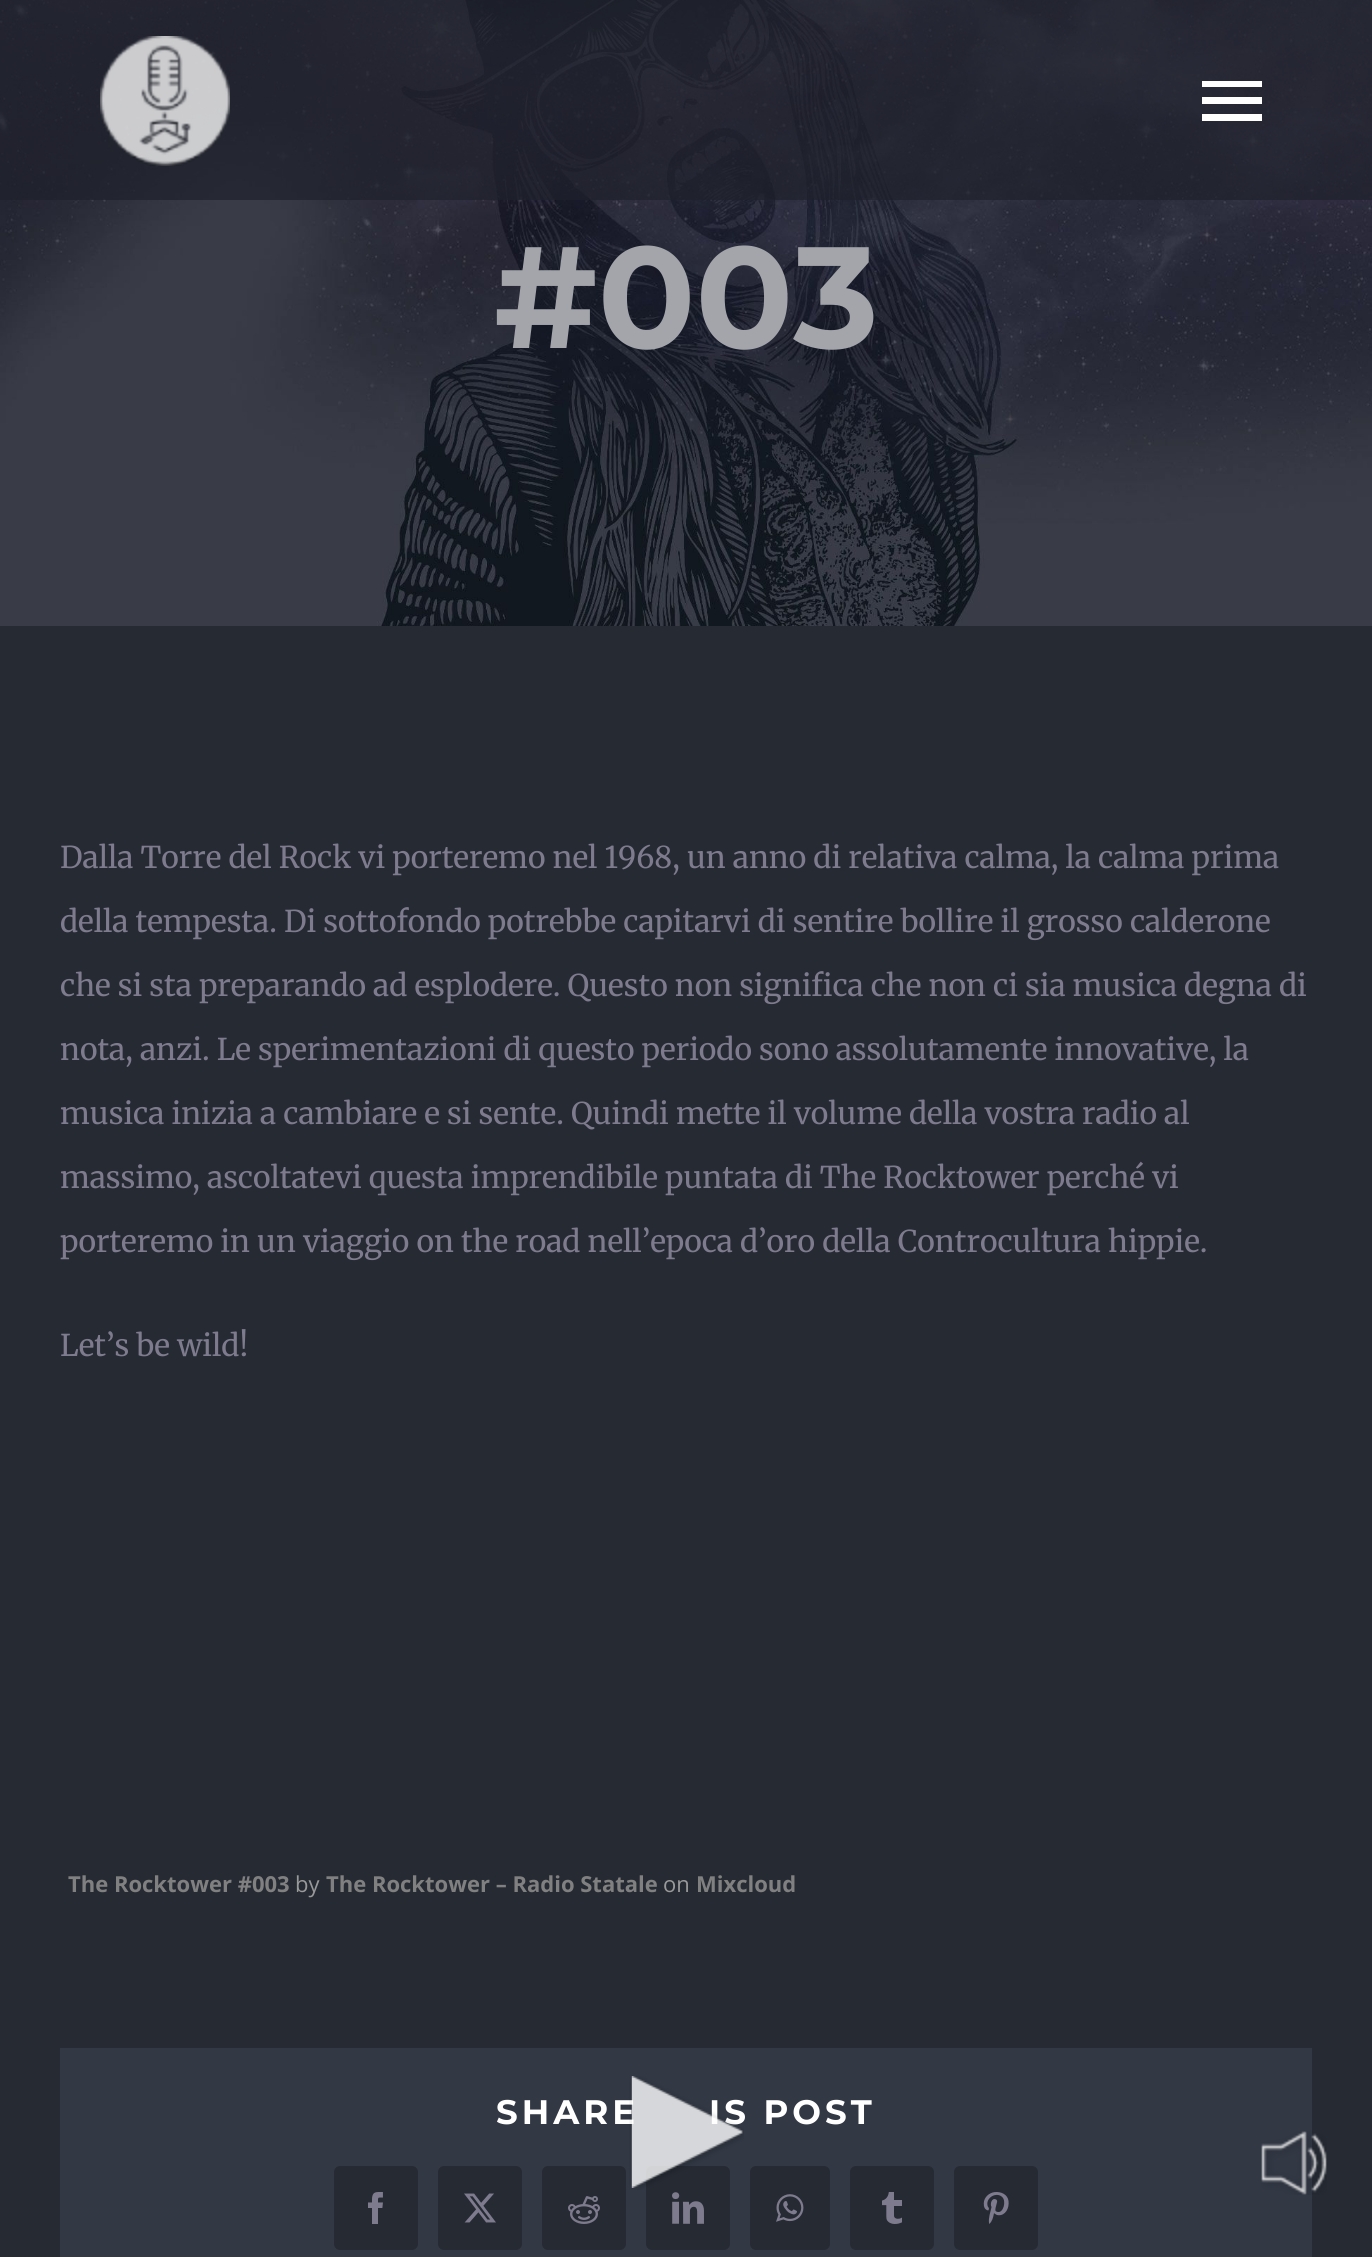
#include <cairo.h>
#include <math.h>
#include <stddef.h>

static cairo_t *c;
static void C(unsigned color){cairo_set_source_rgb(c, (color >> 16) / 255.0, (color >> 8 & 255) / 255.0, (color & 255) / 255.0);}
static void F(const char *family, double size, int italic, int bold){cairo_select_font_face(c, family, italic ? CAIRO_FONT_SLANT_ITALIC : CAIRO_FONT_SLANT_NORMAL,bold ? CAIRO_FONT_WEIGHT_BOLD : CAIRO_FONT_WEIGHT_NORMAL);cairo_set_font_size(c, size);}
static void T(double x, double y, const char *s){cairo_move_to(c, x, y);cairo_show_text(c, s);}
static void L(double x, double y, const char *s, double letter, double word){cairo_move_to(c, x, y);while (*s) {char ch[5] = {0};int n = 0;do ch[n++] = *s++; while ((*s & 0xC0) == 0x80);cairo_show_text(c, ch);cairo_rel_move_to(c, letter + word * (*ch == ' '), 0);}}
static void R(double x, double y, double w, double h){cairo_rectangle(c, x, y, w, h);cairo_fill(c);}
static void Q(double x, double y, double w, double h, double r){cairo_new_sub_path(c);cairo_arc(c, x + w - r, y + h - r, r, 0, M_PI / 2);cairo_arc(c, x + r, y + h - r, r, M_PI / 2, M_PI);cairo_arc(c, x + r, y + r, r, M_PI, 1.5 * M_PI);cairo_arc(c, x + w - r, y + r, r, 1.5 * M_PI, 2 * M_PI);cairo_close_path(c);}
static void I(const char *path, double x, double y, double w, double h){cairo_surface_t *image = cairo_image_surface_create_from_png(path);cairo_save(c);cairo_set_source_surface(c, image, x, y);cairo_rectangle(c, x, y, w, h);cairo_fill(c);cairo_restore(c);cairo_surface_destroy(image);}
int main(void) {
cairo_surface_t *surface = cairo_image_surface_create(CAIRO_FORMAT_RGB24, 1372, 2257);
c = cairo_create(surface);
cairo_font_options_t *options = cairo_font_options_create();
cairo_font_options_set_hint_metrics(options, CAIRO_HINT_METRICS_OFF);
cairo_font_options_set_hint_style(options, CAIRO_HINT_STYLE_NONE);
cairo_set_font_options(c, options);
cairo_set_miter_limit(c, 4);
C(0x252a33);
cairo_paint(c);
I("2.png",0,0,1372,626);
cairo_set_source_rgba(c,0.118,0.129,0.169,0.7);
R(0,0,1372,200);
I("1.png",100,36,130,130);
C(0xffffff);
cairo_new_path(c);
cairo_move_to(c,1202,81);
cairo_line_to(c,1262,81);
cairo_line_to(c,1262,87);
cairo_line_to(c,1202,87);
cairo_close_path(c);
cairo_move_to(c,1202,104);
cairo_line_to(c,1202,97);
cairo_line_to(c,1262,97);
cairo_line_to(c,1262,104);
cairo_close_path(c);
cairo_move_to(c,1202,121);
cairo_line_to(c,1202,114);
cairo_line_to(c,1262,114);
cairo_line_to(c,1262,121);
cairo_close_path(c);
cairo_fill(c);
F("Montserrat",144,0,1);
C(0xa3a5aa);
T(494,348,"#003");
F("Merriweather",30,0,0);
C(0x7d7b8d);
T(60,868,"Dalla Torre del Rock vi porteremo nel 1968, un anno di relativa calma, la calma prima");
T(60,932,"della tempesta. Di sottofondo potrebbe capitarvi di sentire bollire il grosso calderone");
T(60,996,"che si sta preparando ad esplodere. Questo non significa che non ci sia musica degna di");
T(60,1060,"nota, anzi. Le sperimentazioni di questo periodo sono assolutamente innovative, la");
T(60,1124,"musica inizia a cambiare e si sente. Quindi mette il volume della vostra radio al");
T(60,1188,"massimo, ascoltatevi questa imprendibile puntata di The Rocktower perché vi");
T(60,1252,"porteremo in un viaggio on the road nell’epoca d’oro della Controcultura hippie.");
T(60,1356,"Let’s be wild!");
F("Open Sans",22,0,1);
C(0x808080);
T(68,1892,"The Rocktower #003");
F("Open Sans",22,0,0);
C(0x999999);
T(295,1892,"by");
F("Open Sans",22,0,1);
C(0x808080);
T(326,1892,"The Rocktower – Radio Statale");
F("Open Sans",22,0,0);
C(0x999999);
T(663,1892,"on");
F("Open Sans",22,0,1);
C(0x808080);
T(696,1892,"Mixcloud");
C(0x323844);
R(60,2048,1252,209);
F("Montserrat",34,0,1);
C(0xffffff);
L(496,2124,"SHARE",4,0);
L(709,2124,"IS POST",4,0);
C(0x252a33);
Q(335,2167,82,82,5);
cairo_fill_preserve(c);
cairo_stroke(c);
I("3.png",368,2192,15,32);
Q(439,2167,82,82,5);
cairo_fill_preserve(c);
cairo_stroke(c);
I("4.png",464,2193,32,30);
Q(543,2167,82,82,5);
cairo_fill_preserve(c);
cairo_stroke(c);
I("5.png",568,2196,32,28);
Q(647,2167,82,82,5);
cairo_fill_preserve(c);
cairo_stroke(c);
I("6.png",672,2192,32,32);
Q(751,2167,78,82,5);
cairo_fill_preserve(c);
cairo_stroke(c);
I("7.png",776,2194,28,28);
Q(851,2167,82,82,5);
cairo_fill_preserve(c);
cairo_stroke(c);
I("8.png",882,2192,20,32);
Q(955,2167,82,82,5);
cairo_fill_preserve(c);
cairo_stroke(c);
I("9.png",983,2192,26,32);
I("10.png",629,2076,115,114);
I("11.png",1261,2131,66,64);
cairo_surface_write_to_png(surface, "o.png");
cairo_font_options_destroy(options);
cairo_destroy(c);
cairo_surface_destroy(surface);
return 0;
}
